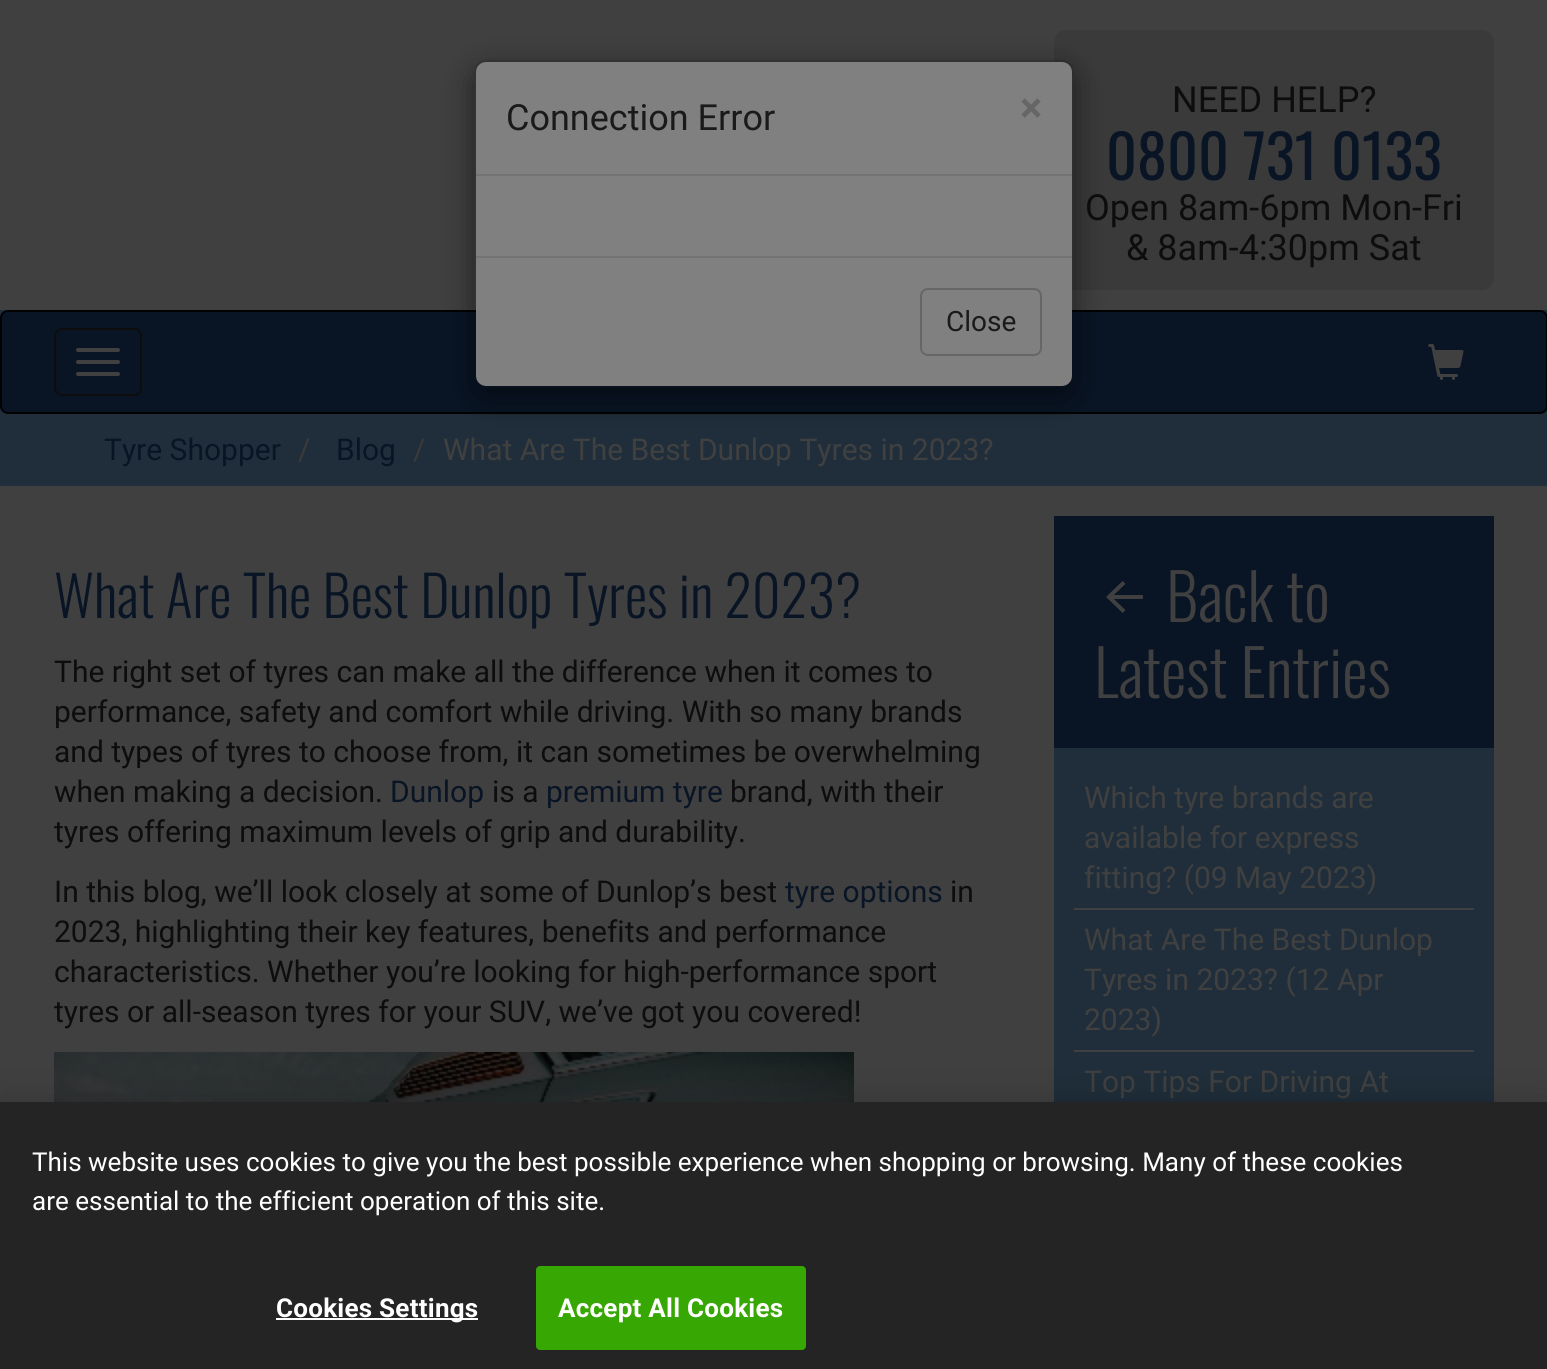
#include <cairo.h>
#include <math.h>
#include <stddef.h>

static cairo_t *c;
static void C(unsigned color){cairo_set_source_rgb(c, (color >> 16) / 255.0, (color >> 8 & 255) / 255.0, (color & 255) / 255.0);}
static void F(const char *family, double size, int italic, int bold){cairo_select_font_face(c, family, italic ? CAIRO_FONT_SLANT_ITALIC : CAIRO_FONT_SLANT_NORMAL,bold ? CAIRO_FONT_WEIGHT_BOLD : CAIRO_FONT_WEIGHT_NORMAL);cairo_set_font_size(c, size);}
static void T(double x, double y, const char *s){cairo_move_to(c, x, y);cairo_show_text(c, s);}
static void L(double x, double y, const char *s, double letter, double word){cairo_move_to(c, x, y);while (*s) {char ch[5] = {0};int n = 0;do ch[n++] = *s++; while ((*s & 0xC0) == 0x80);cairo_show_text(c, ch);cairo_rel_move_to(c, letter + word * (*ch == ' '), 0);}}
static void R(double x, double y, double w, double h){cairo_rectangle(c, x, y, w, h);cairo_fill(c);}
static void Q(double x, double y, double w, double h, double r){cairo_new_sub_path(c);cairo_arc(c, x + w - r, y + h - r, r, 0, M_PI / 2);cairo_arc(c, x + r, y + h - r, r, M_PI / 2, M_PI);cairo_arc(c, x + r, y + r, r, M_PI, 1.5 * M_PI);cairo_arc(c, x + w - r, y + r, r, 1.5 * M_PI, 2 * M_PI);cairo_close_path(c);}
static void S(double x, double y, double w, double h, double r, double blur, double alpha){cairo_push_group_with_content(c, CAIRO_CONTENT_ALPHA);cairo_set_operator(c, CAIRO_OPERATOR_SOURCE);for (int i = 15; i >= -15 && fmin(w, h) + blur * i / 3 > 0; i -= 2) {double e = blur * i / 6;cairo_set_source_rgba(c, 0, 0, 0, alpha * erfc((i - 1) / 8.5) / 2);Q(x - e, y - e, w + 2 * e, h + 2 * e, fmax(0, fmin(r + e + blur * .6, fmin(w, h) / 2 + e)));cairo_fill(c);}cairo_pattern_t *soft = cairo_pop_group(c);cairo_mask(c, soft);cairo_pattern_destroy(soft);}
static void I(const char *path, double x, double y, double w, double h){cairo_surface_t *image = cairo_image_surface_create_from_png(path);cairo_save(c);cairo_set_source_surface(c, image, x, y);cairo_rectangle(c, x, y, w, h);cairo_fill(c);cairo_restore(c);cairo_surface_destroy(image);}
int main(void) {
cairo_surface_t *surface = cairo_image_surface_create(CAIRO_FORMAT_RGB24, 1547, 1369);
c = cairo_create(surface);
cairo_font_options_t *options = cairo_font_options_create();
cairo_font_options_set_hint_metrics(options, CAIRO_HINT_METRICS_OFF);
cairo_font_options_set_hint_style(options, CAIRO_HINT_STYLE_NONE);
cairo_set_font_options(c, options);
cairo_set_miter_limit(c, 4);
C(0x404040);
cairo_paint(c);
C(0x3a3a3a);
Q(1054,30,440,260,12);
cairo_fill(c);
C(0x1f2e3a);
R(0,310,1547,176);
C(0x091525);
Q(1,311,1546,102,7);
cairo_fill_preserve(c);
C(0x020202);
cairo_stroke(c);
cairo_save(c);
cairo_set_fill_rule(c,CAIRO_FILL_RULE_EVEN_ODD);
cairo_new_path(c);
cairo_move_to(c,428,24);
cairo_line_to(c,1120,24);
cairo_line_to(c,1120,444);
cairo_line_to(c,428,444);
cairo_close_path(c);
cairo_move_to(c,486,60);
cairo_line_to(c,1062,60);
cairo_curve_to(c,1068.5,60,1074,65.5,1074,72);
cairo_line_to(c,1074,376);
cairo_curve_to(c,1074,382.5,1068.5,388,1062,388);
cairo_line_to(c,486,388);
cairo_curve_to(c,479.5,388,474,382.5,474,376);
cairo_line_to(c,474,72);
cairo_curve_to(c,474,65.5,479.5,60,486,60);
cairo_close_path(c);
cairo_clip(c);
C(0x000000);
S(474,70,600,328,12,15,.5);
cairo_restore(c);
C(0x808080);
Q(476,62,596,324,10);
cairo_fill(c);
Q(475,61,598,326,11);
cairo_set_source_rgba(c,0,0,0,0.2);
cairo_stroke(c);
C(0x737373);
R(476,174,596,2);
F("Roboto",36,0,0);
C(0x1a1a1a);
T(506,130,"Connection Error");
F("Roboto",42,0,1);
C(0x666666);
T(1020,122,"×");
C(0x737373);
R(476,256,596,2);
Q(921,289,120,66,7);
C(0x666666);
cairo_stroke(c);
F("Roboto",28,0,0);
C(0x1a1a1a);
T(946,331,"Close");
F("Roboto",36,0,0);
C(0x0d0d0d);
T(1172,112,"NEED HELP?");
F("Oswald",60,0,0);
C(0x091525);
T(1106,180,"0800 731 0133");
F("Roboto",36,0,0);
C(0x0d0d0d);
T(1085,220,"Open 8am-6pm Mon-Fri");
T(1126,260,"& 8am-4:30pm Sat");
Q(55,329,86,66,7);
cairo_stroke(c);
C(0x404040);
Q(76,348,44,4,2);
cairo_fill(c);
Q(76,360,44,4,2);
cairo_fill(c);
Q(76,372,44,4,2);
cairo_fill(c);
I("1.png",1428,344,36,36);
F("Roboto",30,0,0);
C(0x091525);
T(104,460,"Tyre Shopper");
C(0x3a3a3a);
T(298,460,"/");
C(0x091525);
T(336,460,"Blog");
C(0x3a3a3a);
T(413,460,"/");
C(0x404040);
T(443,460,"What Are The Best Dunlop Tyres in 2023?");
F("Oswald Light",56,0,0);
C(0x091525);
T(54,618,"What Are The Best Dunlop Tyres in 2023?");
F("Roboto",30,0,0);
C(0x0d0d0d);
T(54,682,"The right set of tyres can make all the difference when it comes to");
T(54,722,"performance, safety and comfort while driving. With so many brands");
T(54,762,"and types of tyres to choose from, it can sometimes be overwhelming");
T(54,802,"when making a decision.");
C(0x091525);
T(390,802,"Dunlop");
C(0x0d0d0d);
T(492,802,"is a");
C(0x091525);
T(546,802,"premium tyre");
C(0x0d0d0d);
T(730,802,"brand, with their");
T(54,842,"tyres offering maximum levels of grip and durability.");
T(54,902,"In this blog, we’ll look closely at some of Dunlop’s best");
C(0x091525);
T(785,902,"tyre options");
C(0x0d0d0d);
T(950,902,"in");
T(54,942,"2023, highlighting their key features, benefits and performance");
T(54,982,"characteristics. Whether you’re looking for high-performance sport");
T(54,1022,"tyres or all-season tyres for your SUV, we’ve got you covered!");
I("2.png",54,1052,800,50);
C(0x091525);
R(1054,516,440,232);
I("3.png",1106,581,37,32);
F("Oswald Light",64,0,0);
C(0x404040);
T(1166,622,"Back to");
T(1094,698,"Latest Entries");
C(0x1f2e3a);
R(1054,748,440,354);
F("Roboto",30,0,0);
C(0x404040);
T(1084,808,"Which tyre brands are");
T(1084,848,"available for express");
T(1084,888,"fitting? (09 May 2023)");
R(1074,908,400,2);
T(1084,950,"What Are The Best Dunlop");
T(1084,990,"Tyres in 2023? (12 Apr");
T(1084,1030,"2023)");
R(1074,1050,400,2);
T(1084,1092,"Top Tips For Driving At");
C(0x000000);
S(0,1102,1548,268,0,18,.2);
C(0x242424);
R(0,1102,1547,267);
F("Roboto",26.02,0,0);
C(0xffffff);
T(32,1171,"This website uses cookies to give you the best possible experience when shopping or browsing. Many of these cookies");
T(32,1210,"are essential to the efficient operation of this site.");
R(276,1318,202,2);
F("Roboto",26.02,0,1);
L(276,1317,"Cookies Settings",.25,0);
C(0x37a703);
Q(537,1267,268,82,3);
cairo_fill_preserve(c);
cairo_stroke(c);
C(0xffffff);
L(558,1317,"Accept All Cookies",.25,0);
cairo_surface_write_to_png(surface, "o.png");
cairo_font_options_destroy(options);
cairo_destroy(c);
cairo_surface_destroy(surface);
return 0;
}
